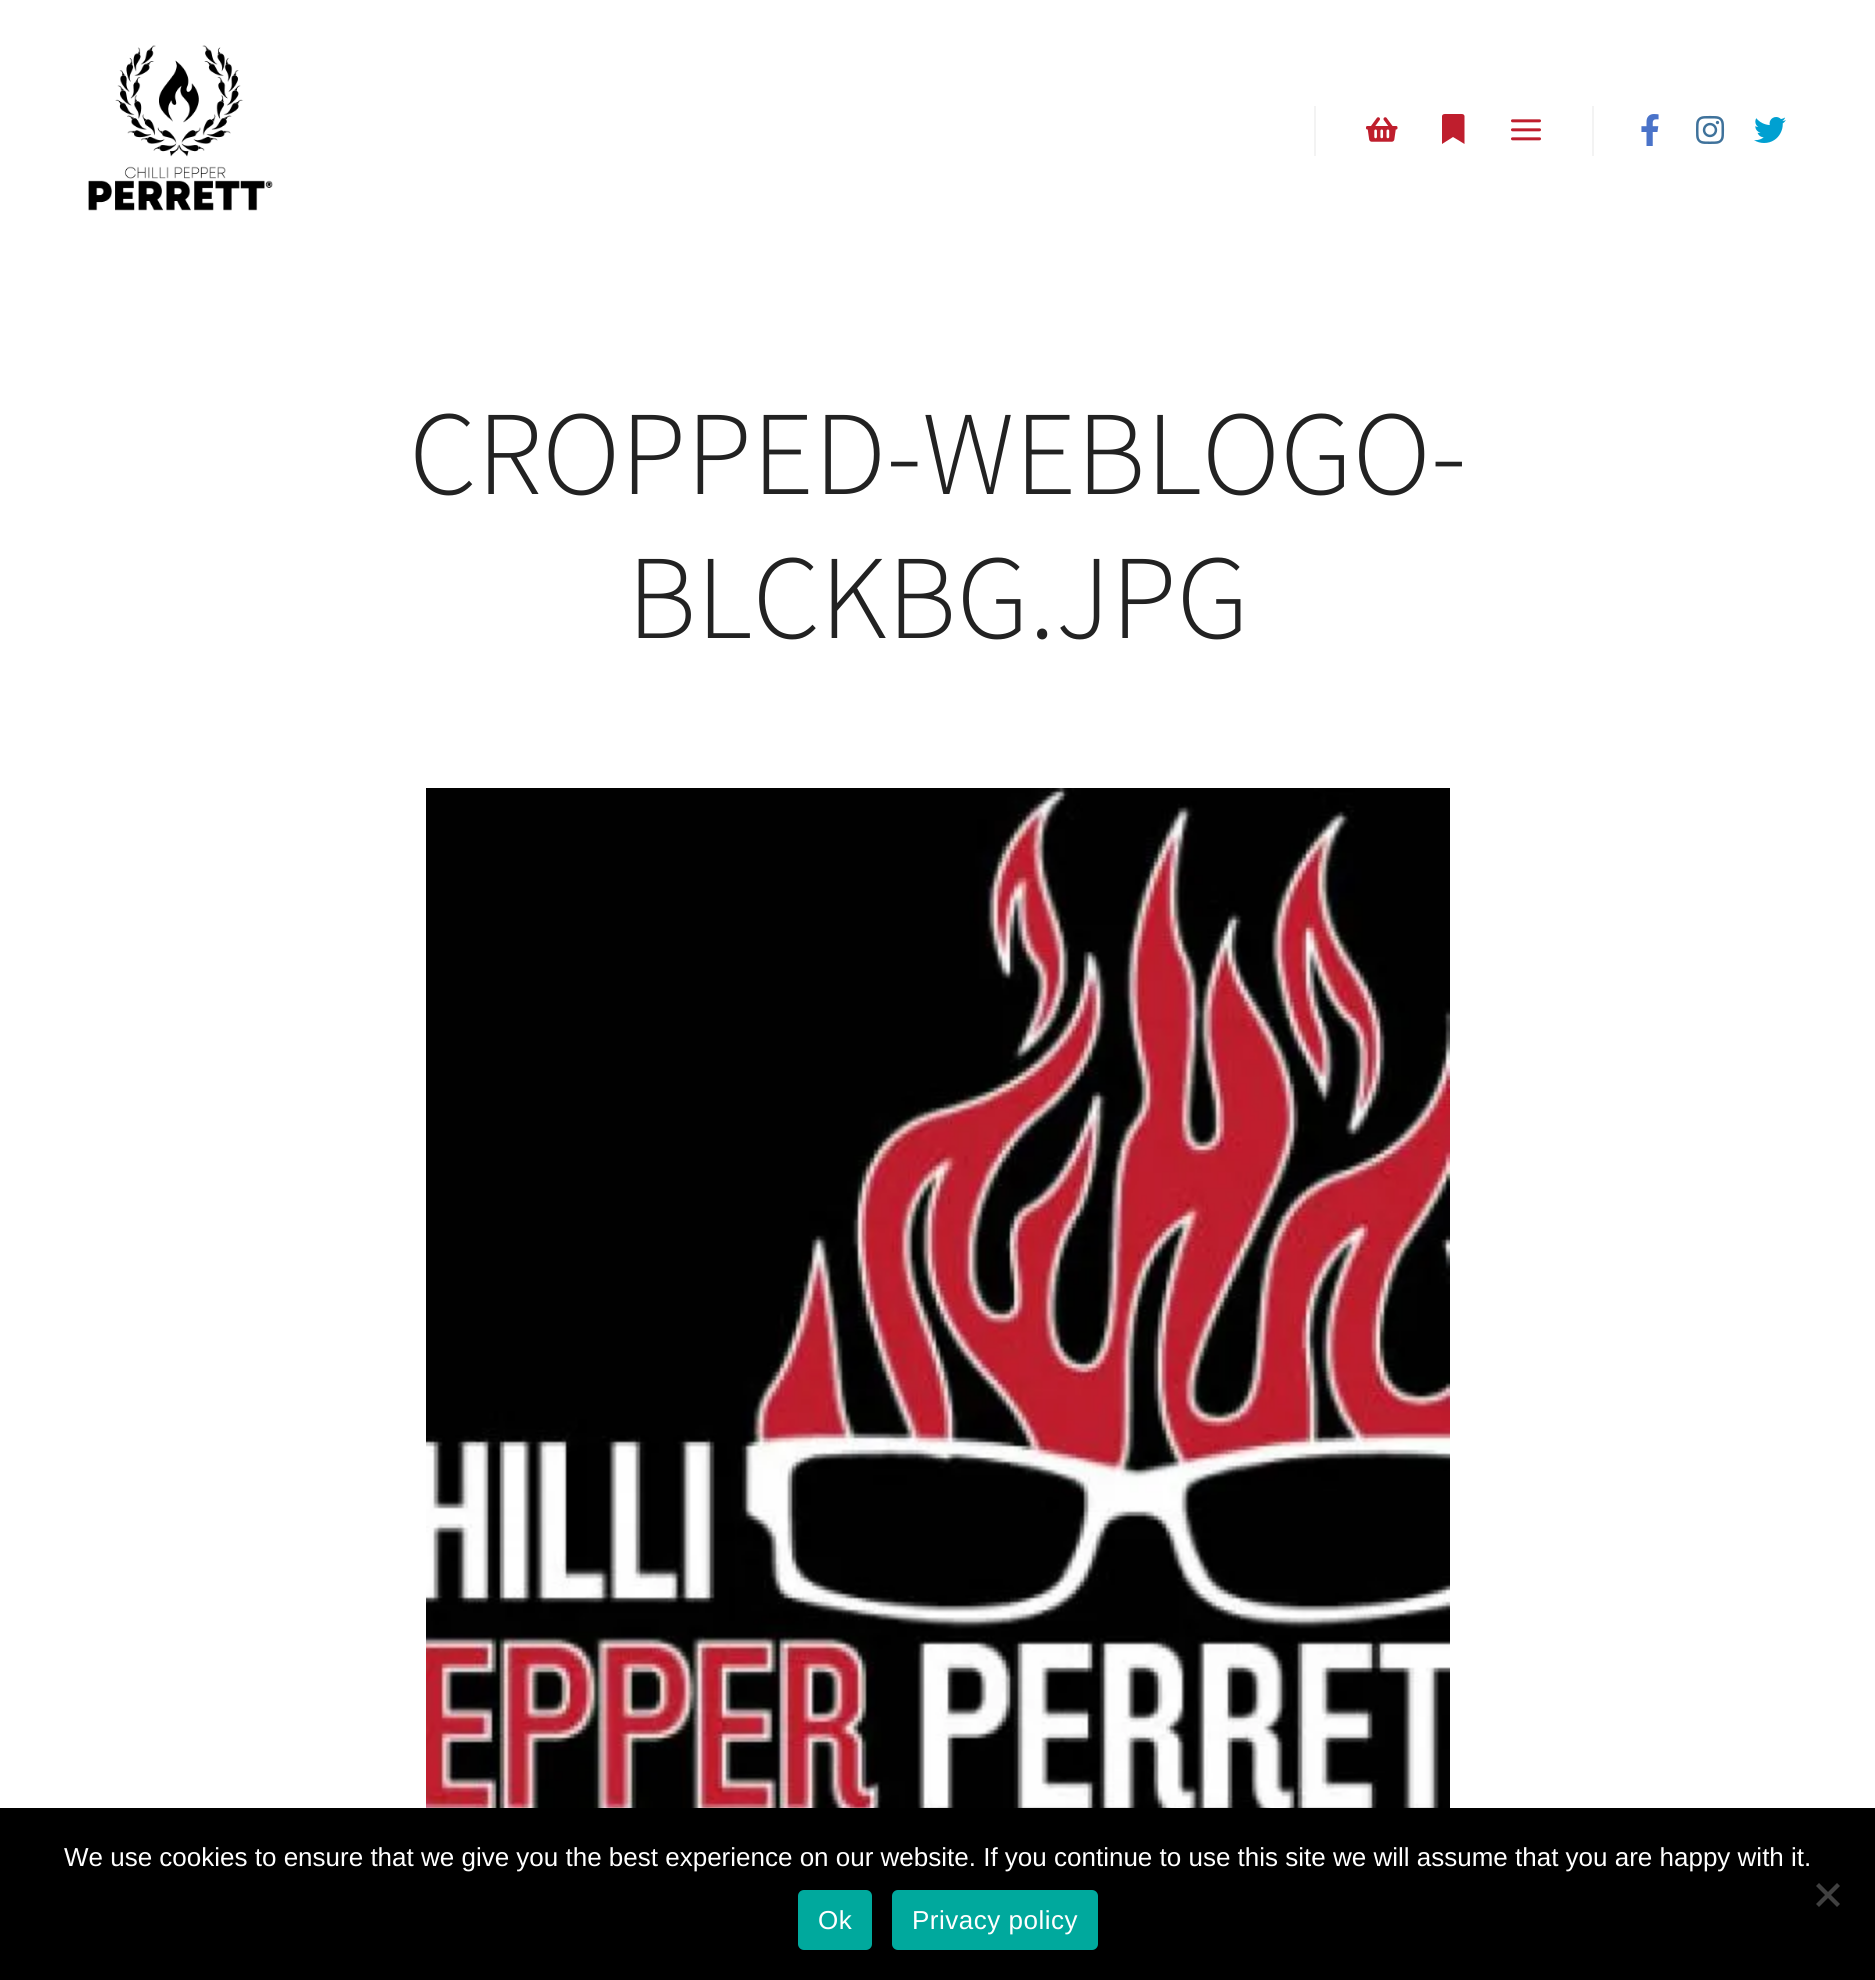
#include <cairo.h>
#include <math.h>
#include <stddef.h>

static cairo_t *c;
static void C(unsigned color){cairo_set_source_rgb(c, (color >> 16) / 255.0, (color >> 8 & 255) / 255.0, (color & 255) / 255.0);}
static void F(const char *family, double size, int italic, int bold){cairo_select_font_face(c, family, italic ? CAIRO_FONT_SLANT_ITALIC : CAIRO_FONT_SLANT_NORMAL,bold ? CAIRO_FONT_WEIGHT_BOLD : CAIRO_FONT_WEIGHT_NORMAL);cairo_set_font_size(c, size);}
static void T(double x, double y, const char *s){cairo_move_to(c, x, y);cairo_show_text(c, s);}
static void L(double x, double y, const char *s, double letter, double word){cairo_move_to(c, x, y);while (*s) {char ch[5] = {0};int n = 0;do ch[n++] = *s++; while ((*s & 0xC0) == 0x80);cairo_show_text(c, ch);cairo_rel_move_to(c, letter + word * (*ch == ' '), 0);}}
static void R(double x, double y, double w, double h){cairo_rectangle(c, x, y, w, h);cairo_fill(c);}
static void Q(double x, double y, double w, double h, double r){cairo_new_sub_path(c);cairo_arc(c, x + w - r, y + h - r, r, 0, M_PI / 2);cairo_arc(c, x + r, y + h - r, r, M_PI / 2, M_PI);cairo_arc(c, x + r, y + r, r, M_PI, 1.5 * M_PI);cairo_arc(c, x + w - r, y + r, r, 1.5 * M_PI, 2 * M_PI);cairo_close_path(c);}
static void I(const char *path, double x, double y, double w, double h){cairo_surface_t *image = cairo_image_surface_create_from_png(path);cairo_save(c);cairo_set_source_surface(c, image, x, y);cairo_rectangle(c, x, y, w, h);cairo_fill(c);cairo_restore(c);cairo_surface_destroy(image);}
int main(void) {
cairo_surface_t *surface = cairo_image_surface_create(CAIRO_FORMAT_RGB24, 1875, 1980);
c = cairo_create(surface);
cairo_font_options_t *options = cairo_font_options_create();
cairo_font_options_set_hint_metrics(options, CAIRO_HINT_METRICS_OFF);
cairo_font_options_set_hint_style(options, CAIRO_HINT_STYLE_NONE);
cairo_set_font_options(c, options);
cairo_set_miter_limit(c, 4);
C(0xffffff);
cairo_paint(c);
I("1.png",88,45,185,166);
C(0xf3f3f3);
R(1314,106,2,50);
I("2.png",1366,117,32,25);
C(0xbf1e2d);
cairo_new_path(c);
cairo_move_to(c,1442,144);
cairo_line_to(c,1442,116);
cairo_curve_to(c,1442.5,113.5,1445.5,114,1447.5,114);
cairo_line_to(c,1459,114);
cairo_curve_to(c,1461,114,1464,113.5,1464.5,116);
cairo_line_to(c,1464.5,144);
cairo_line_to(c,1453,137);
cairo_close_path(c);
cairo_fill(c);
I("3.png",1511,119,30,22);
C(0xf3f3f3);
R(1592,106,2,50);
I("4.png",1641,114,18,32);
I("5.png",1696,115,29,29);
I("6.png",1754,117,32,26);
F("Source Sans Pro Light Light",120,0,0);
C(0x222222);
T(409,494,"CROPPED-WEBLOGO-");
T(627,638,"BLCKBG.JPG");
I("7.png",426,788,1024,1020);
C(0x000000);
R(0,1808,1875,172);
F("Liberation Sans",26,0,0);
C(0xffffff);
T(64,1866,"We use cookies to ensure that we give you the best experience on our website. If you continue to use this site we will assume that you are happy with it.");
C(0x404040);
cairo_new_path(c);
cairo_move_to(c,1837,1883);
cairo_line_to(c,1840,1886);
cairo_line_to(c,1819,1907);
cairo_line_to(c,1816,1904);
cairo_close_path(c);
cairo_fill(c);
cairo_new_path(c);
cairo_move_to(c,1816,1886);
cairo_line_to(c,1819,1883);
cairo_line_to(c,1840,1904);
cairo_line_to(c,1837,1907);
cairo_close_path(c);
cairo_fill(c);
C(0x00a99d);
Q(798,1890,74,60,6);
cairo_fill(c);
C(0xffffff);
L(818,1929,"Ok",.5,0);
C(0x00a99d);
Q(892,1890,206,60,6);
cairo_fill(c);
C(0xffffff);
L(912,1929,"Privacy policy",.5,0);
cairo_surface_write_to_png(surface, "o.png");
cairo_font_options_destroy(options);
cairo_destroy(c);
cairo_surface_destroy(surface);
return 0;
}
